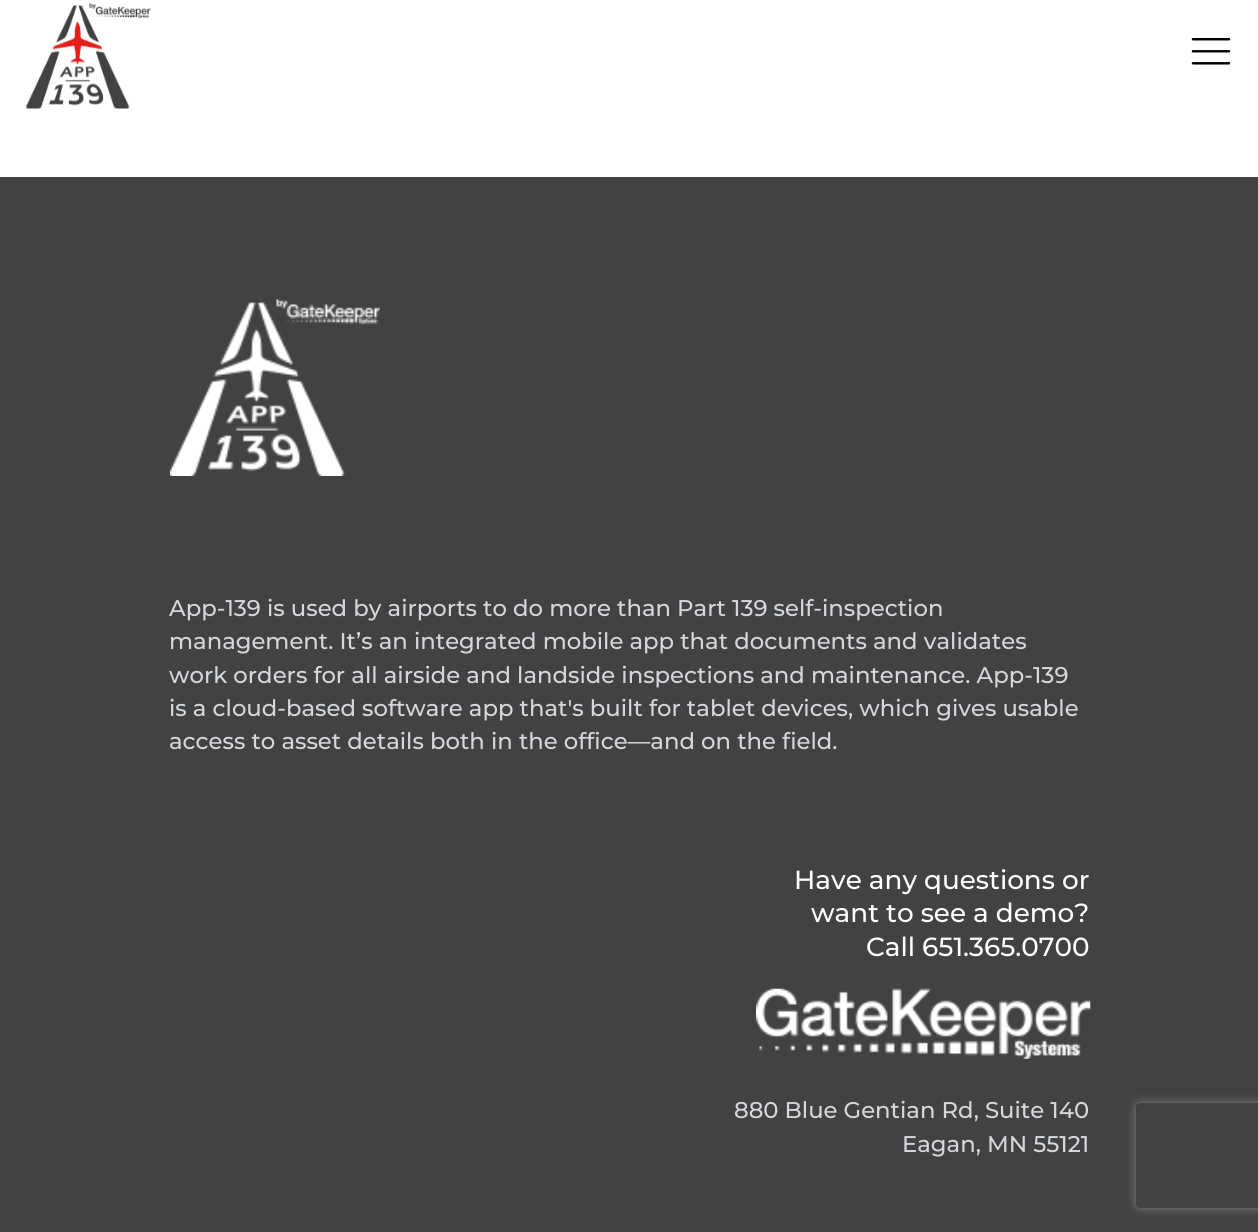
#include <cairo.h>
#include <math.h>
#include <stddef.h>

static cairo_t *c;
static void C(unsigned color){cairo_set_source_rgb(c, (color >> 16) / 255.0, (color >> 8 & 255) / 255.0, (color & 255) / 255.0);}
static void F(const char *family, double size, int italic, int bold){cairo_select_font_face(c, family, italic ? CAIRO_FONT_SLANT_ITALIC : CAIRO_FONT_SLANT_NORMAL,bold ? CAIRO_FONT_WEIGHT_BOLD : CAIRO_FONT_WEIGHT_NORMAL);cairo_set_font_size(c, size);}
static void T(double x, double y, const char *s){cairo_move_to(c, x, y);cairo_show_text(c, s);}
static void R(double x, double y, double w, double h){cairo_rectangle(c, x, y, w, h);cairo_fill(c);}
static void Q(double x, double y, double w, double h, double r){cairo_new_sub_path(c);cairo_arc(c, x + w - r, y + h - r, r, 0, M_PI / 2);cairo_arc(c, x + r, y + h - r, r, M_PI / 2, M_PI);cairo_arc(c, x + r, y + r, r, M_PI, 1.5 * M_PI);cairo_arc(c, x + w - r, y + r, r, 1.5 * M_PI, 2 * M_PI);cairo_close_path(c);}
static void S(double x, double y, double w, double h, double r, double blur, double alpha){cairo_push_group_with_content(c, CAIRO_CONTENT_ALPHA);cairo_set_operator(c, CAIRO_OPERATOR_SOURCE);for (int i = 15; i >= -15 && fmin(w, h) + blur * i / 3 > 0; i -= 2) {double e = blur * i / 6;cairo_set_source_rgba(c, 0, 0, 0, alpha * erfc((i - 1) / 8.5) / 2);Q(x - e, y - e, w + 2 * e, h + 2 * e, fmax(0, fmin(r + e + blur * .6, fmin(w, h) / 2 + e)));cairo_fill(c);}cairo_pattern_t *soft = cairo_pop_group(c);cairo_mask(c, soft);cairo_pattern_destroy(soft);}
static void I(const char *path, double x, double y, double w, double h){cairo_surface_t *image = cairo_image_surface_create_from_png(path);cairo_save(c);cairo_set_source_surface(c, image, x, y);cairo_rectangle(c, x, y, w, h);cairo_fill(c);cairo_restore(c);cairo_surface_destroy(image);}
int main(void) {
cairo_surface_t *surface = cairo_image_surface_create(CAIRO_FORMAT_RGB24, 1258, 1232);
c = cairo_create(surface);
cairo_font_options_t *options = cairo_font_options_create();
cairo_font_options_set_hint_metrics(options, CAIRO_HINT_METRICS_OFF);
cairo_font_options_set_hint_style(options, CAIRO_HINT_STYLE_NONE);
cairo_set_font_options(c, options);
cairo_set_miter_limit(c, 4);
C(0xffffff);
cairo_paint(c);
I("1.png",26,3,125,106);
I("2.png",1191,38,40,27);
C(0x424242);
R(0,177,1258,1055);
I("3.png",169,299,211,177);
F("Montserrat Medium",22.75,0,0);
C(0xd4d7db);
T(169,616,"App-139 is used by airports to do more than Part 139 self-inspection");
T(169,649,"management. It’s an integrated mobile app that documents and validates");
T(169,683,"work orders for all airside and landside inspections and maintenance. App-139");
T(169,716,"is a cloud-based software app that's built for tablet devices, which gives usable");
T(169,749,"access to asset details both in the office—and on the field.");
F("Montserrat Medium",26.25,0,0);
C(0xffffff);
T(794,889,"Have any questions or");
T(811,922,"want to see a demo?");
T(866,956,"Call 651.365.0700");
I("4.png",756,988,335,71);
F("Montserrat Medium",22.75,0,0);
C(0xd4d7db);
T(734,1118,"880 Blue Gentian Rd, Suite 140");
T(902,1152,"Eagan, MN 55121");
cairo_save(c);
cairo_set_fill_rule(c,CAIRO_FILL_RULE_EVEN_ODD);
cairo_new_path(c);
cairo_move_to(c,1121,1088);
cairo_line_to(c,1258,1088);
cairo_line_to(c,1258,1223);
cairo_line_to(c,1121,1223);
cairo_close_path(c);
cairo_move_to(c,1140,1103);
cairo_line_to(c,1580,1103);
cairo_curve_to(c,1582,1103,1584,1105,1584,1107);
cairo_line_to(c,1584,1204);
cairo_curve_to(c,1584,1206,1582,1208,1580,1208);
cairo_line_to(c,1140,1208);
cairo_curve_to(c,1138,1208,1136,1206,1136,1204);
cairo_line_to(c,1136,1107);
cairo_curve_to(c,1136,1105,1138,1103,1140,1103);
cairo_close_path(c);
cairo_clip(c);
C(0x808080);
S(1136,1103,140,105,4,4.5,1);
cairo_restore(c);
cairo_surface_write_to_png(surface, "o.png");
cairo_font_options_destroy(options);
cairo_destroy(c);
cairo_surface_destroy(surface);
return 0;
}
